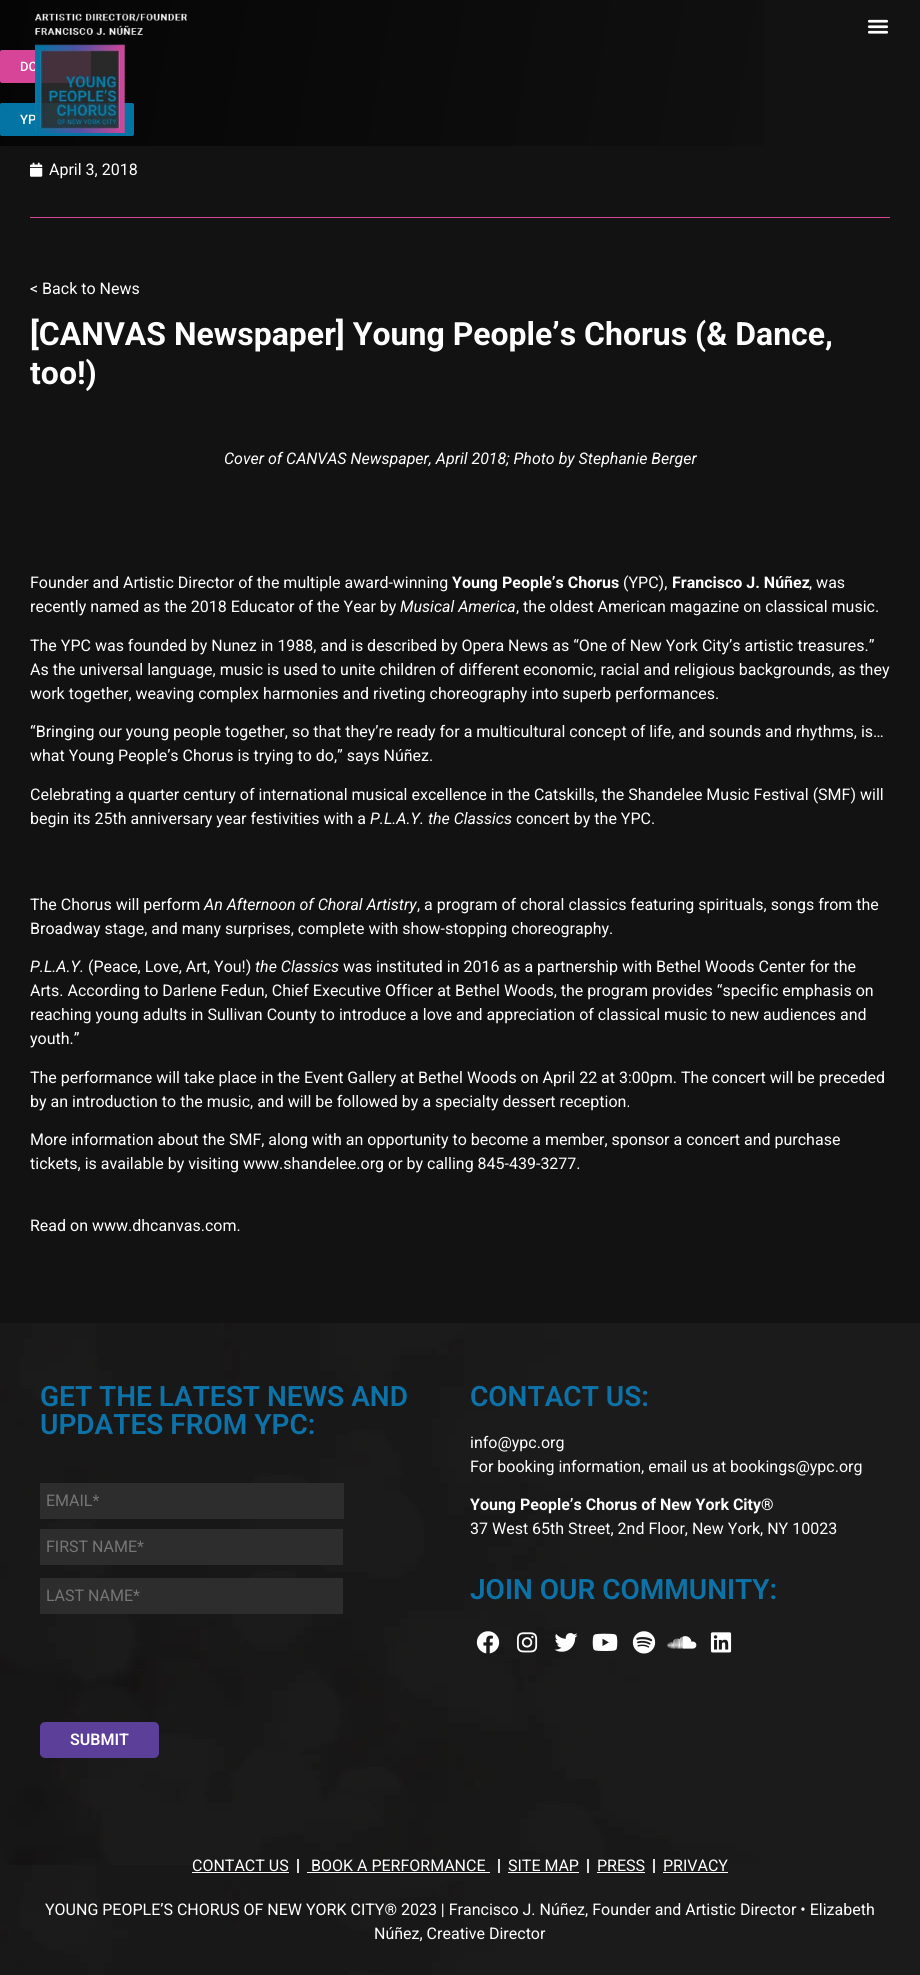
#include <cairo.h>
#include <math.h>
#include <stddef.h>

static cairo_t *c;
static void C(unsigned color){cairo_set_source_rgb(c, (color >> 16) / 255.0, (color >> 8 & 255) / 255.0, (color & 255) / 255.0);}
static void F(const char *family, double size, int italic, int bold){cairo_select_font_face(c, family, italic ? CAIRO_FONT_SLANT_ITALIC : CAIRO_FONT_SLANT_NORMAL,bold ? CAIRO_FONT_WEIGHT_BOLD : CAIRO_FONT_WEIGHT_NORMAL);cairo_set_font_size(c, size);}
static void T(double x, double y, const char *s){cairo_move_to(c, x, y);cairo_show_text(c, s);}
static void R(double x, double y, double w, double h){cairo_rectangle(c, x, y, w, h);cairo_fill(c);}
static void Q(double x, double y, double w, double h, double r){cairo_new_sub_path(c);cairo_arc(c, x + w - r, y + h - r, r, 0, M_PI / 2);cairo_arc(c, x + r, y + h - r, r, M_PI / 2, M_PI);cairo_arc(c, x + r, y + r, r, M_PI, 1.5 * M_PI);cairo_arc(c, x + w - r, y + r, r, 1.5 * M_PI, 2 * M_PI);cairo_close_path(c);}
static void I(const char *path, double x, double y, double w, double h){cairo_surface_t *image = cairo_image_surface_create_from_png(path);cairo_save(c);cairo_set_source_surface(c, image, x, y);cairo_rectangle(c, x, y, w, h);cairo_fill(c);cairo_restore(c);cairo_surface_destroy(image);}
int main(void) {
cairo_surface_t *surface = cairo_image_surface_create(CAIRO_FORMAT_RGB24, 920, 1975);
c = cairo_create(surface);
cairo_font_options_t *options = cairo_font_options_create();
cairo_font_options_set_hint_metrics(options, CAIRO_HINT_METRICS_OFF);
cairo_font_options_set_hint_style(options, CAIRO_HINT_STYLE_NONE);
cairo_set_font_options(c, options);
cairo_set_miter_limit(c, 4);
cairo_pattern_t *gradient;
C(0x121212);
cairo_paint(c);
gradient = cairo_pattern_create_linear(1.4,-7.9,919,154);
cairo_pattern_add_color_stop_rgba(gradient,0,0.02,0.02,0.02,1);
cairo_pattern_add_color_stop_rgba(gradient,1,0.071,0.071,0.071,1);
cairo_set_source(c,gradient);
cairo_pattern_destroy(gradient);
R(0,0,764,146);
C(0xd74599);
Q(0,50,91,33,2);
cairo_fill(c);
F("Roboto Medium",13,0,0);
C(0xffffff);
T(20,71,"DO");
C(0x0374a4);
Q(0,103,134,33,2);
cairo_fill(c);
C(0xffffff);
T(20,124,"YP");
I("1.png",35,13,153,120);
I("2.png",867,19,22,15);
I("3.png",30,162,13,15);
F("Roboto",16,0,0);
T(49,175,"April 3, 2018");
C(0xd74599);
R(30,217,860,1);
C(0xffffff);
T(30,294,"< Back to News");
F("Roboto",32,0,1);
T(30,345,"[CANVAS Newspaper] Young People’s Chorus (& Dance,");
T(30,384,"too!)");
F("Roboto",16,1,0);
T(224,464,"Cover of CANVAS Newspaper, April 2018; Photo by Stephanie Berger");
F("Roboto",16,0,0);
T(30,588,"Founder and Artistic Director of the multiple award-winning");
F("Roboto",16,0,1);
T(452,588,"Young People’s Chorus");
F("Roboto",16,0,0);
T(623,588,"(YPC),");
F("Roboto",16,0,1);
T(672,588,"Francisco J. Núñez");
F("Roboto",16,0,0);
T(809,588,", was");
T(30,612,"recently named as the 2018 Educator of the Year by");
F("Roboto",16,1,0);
T(400,612,"Musical America");
F("Roboto",16,0,0);
T(516,612,", the oldest American magazine on classical music.");
T(30,651,"The YPC was founded by Nunez in 1988, and is described by Opera News as “One of New York City’s artistic treasures.”");
T(30,675,"As the universal language, music is used to unite children of different economic, racial and religious backgrounds, as they");
T(30,699,"work together, weaving complex harmonies and riveting choreography into superb performances.");
T(30,737,"“Bringing our young people together, so that they’re ready for a multicultural concept of life, and sounds and rhythms, is…");
T(30,761,"what Young People’s Chorus is trying to do,” says Núñez.");
T(30,800,"Celebrating a quarter century of international musical excellence in the Catskills, the Shandelee Music Festival (SMF) will");
T(30,824,"begin its 25th anniversary year festivities with a");
F("Roboto",16,1,0);
T(370,824,"P.L.A.Y. the Classics");
F("Roboto",16,0,0);
T(516,824,"concert by the YPC.");
T(30,910,"The Chorus will perform");
F("Roboto",16,1,0);
T(204,910,"An Afternoon of Choral Artistry");
F("Roboto",16,0,0);
T(417,910,", a program of choral classics featuring spirituals, songs from the");
T(30,934,"Broadway stage, and many surprises, complete with show-stopping choreography.");
F("Roboto",16,1,0);
T(30,972,"P.L.A.Y.");
F("Roboto",16,0,0);
T(88,972,"(Peace, Love, Art, You!)");
F("Roboto",16,1,0);
T(255,972,"the Classics");
F("Roboto",16,0,0);
T(343,972,"was instituted in 2016 as a partnership with Bethel Woods Center for the");
T(30,996,"Arts. According to Darlene Fedun, Chief Executive Officer at Bethel Woods, the program provides “specific emphasis on");
T(30,1020,"reaching young adults in Sullivan County to introduce a love and appreciation of classical music to new audiences and");
T(30,1044,"youth.”");
T(30,1083,"The performance will take place in the Event Gallery at Bethel Woods on April 22 at 3:00pm. The concert will be preceded");
T(30,1107,"by an introduction to the music, and will be followed by a specialty dessert reception.");
T(30,1145,"More information about the SMF, along with an opportunity to become a member, sponsor a concert and purchase");
T(30,1169,"tickets, is available by visiting www.shandelee.org or by calling 845-439-3277.");
T(30,1231,"Read on www.dhcanvas.com.");
I("4.png",0,1323,920,652);
F("Roboto SemiBold",28,0,0);
C(0x0c72a7);
T(40,1406,"GET THE LATEST NEWS AND");
T(40,1434,"UPDATES FROM YPC:");
C(0x2d2d2d);
R(40,1483,304,36);
F("Roboto",16,0,0);
C(0x757575);
T(46,1506,"EMAIL*");
C(0x2d2d2d);
R(40,1529,303,36);
C(0x757575);
T(46,1552,"FIRST NAME*");
C(0x2d2d2d);
R(40,1578,303,36);
C(0x757575);
T(46,1601,"LAST NAME*");
C(0x5b3f99);
Q(40,1722,119,36,5);
cairo_fill(c);
F("Roboto SemiBold",16,0,0);
C(0xffffff);
T(70,1745,"SUBMIT");
F("Roboto SemiBold",28,0,0);
C(0x0c72a7);
T(470,1406,"CONTACT US:");
F("Roboto",16,0,0);
C(0xffffff);
T(470,1448,"info@ypc.org");
T(470,1472,"For booking information, email us at bookings@ypc.org");
F("Roboto",16,0,1);
T(470,1510,"Young People’s Chorus of New York City®");
F("Roboto",16,0,0);
T(470,1534,"37 West 65th Street, 2nd Floor, New York, NY 10023");
F("Roboto SemiBold",28,0,0);
C(0x0c72a7);
T(470,1599,"JOIN OUR COMMUNITY:");
I("5.png",476,1631,24,23);
I("6.png",517,1632,21,21);
I("7.png",554,1633,24,19);
I("8.png",592,1633,26,18);
I("9.png",632,1631,24,23);
I("10.png",667,1636,30,13);
I("11.png",710,1632,22,21);
F("Roboto",16,0,0);
C(0xffffff);
T(192,1871,"CONTACT US");
R(192,1872,97,1);
C(0xdddddd);
R(297,1859,2,14);
C(0xffffff);
T(311,1871,"BOOK A PERFORMANCE");
R(307,1872,183,1);
C(0xdddddd);
R(498,1859,2,14);
C(0xffffff);
T(508,1871,"SITE MAP");
R(508,1872,71,1);
C(0xdddddd);
R(587,1859,2,14);
C(0xffffff);
T(597,1871,"PRESS");
R(597,1872,48,1);
C(0xdddddd);
R(653,1859,2,14);
C(0xffffff);
T(663,1871,"PRIVACY");
R(663,1872,65,1);
T(45,1915,"YOUNG PEOPLE’S CHORUS OF NEW YORK CITY® 2023 | Francisco J. Núñez, Founder and Artistic Director • Elizabeth");
T(374,1939,"Núñez, Creative Director");
cairo_surface_write_to_png(surface, "o.png");
cairo_font_options_destroy(options);
cairo_destroy(c);
cairo_surface_destroy(surface);
return 0;
}
